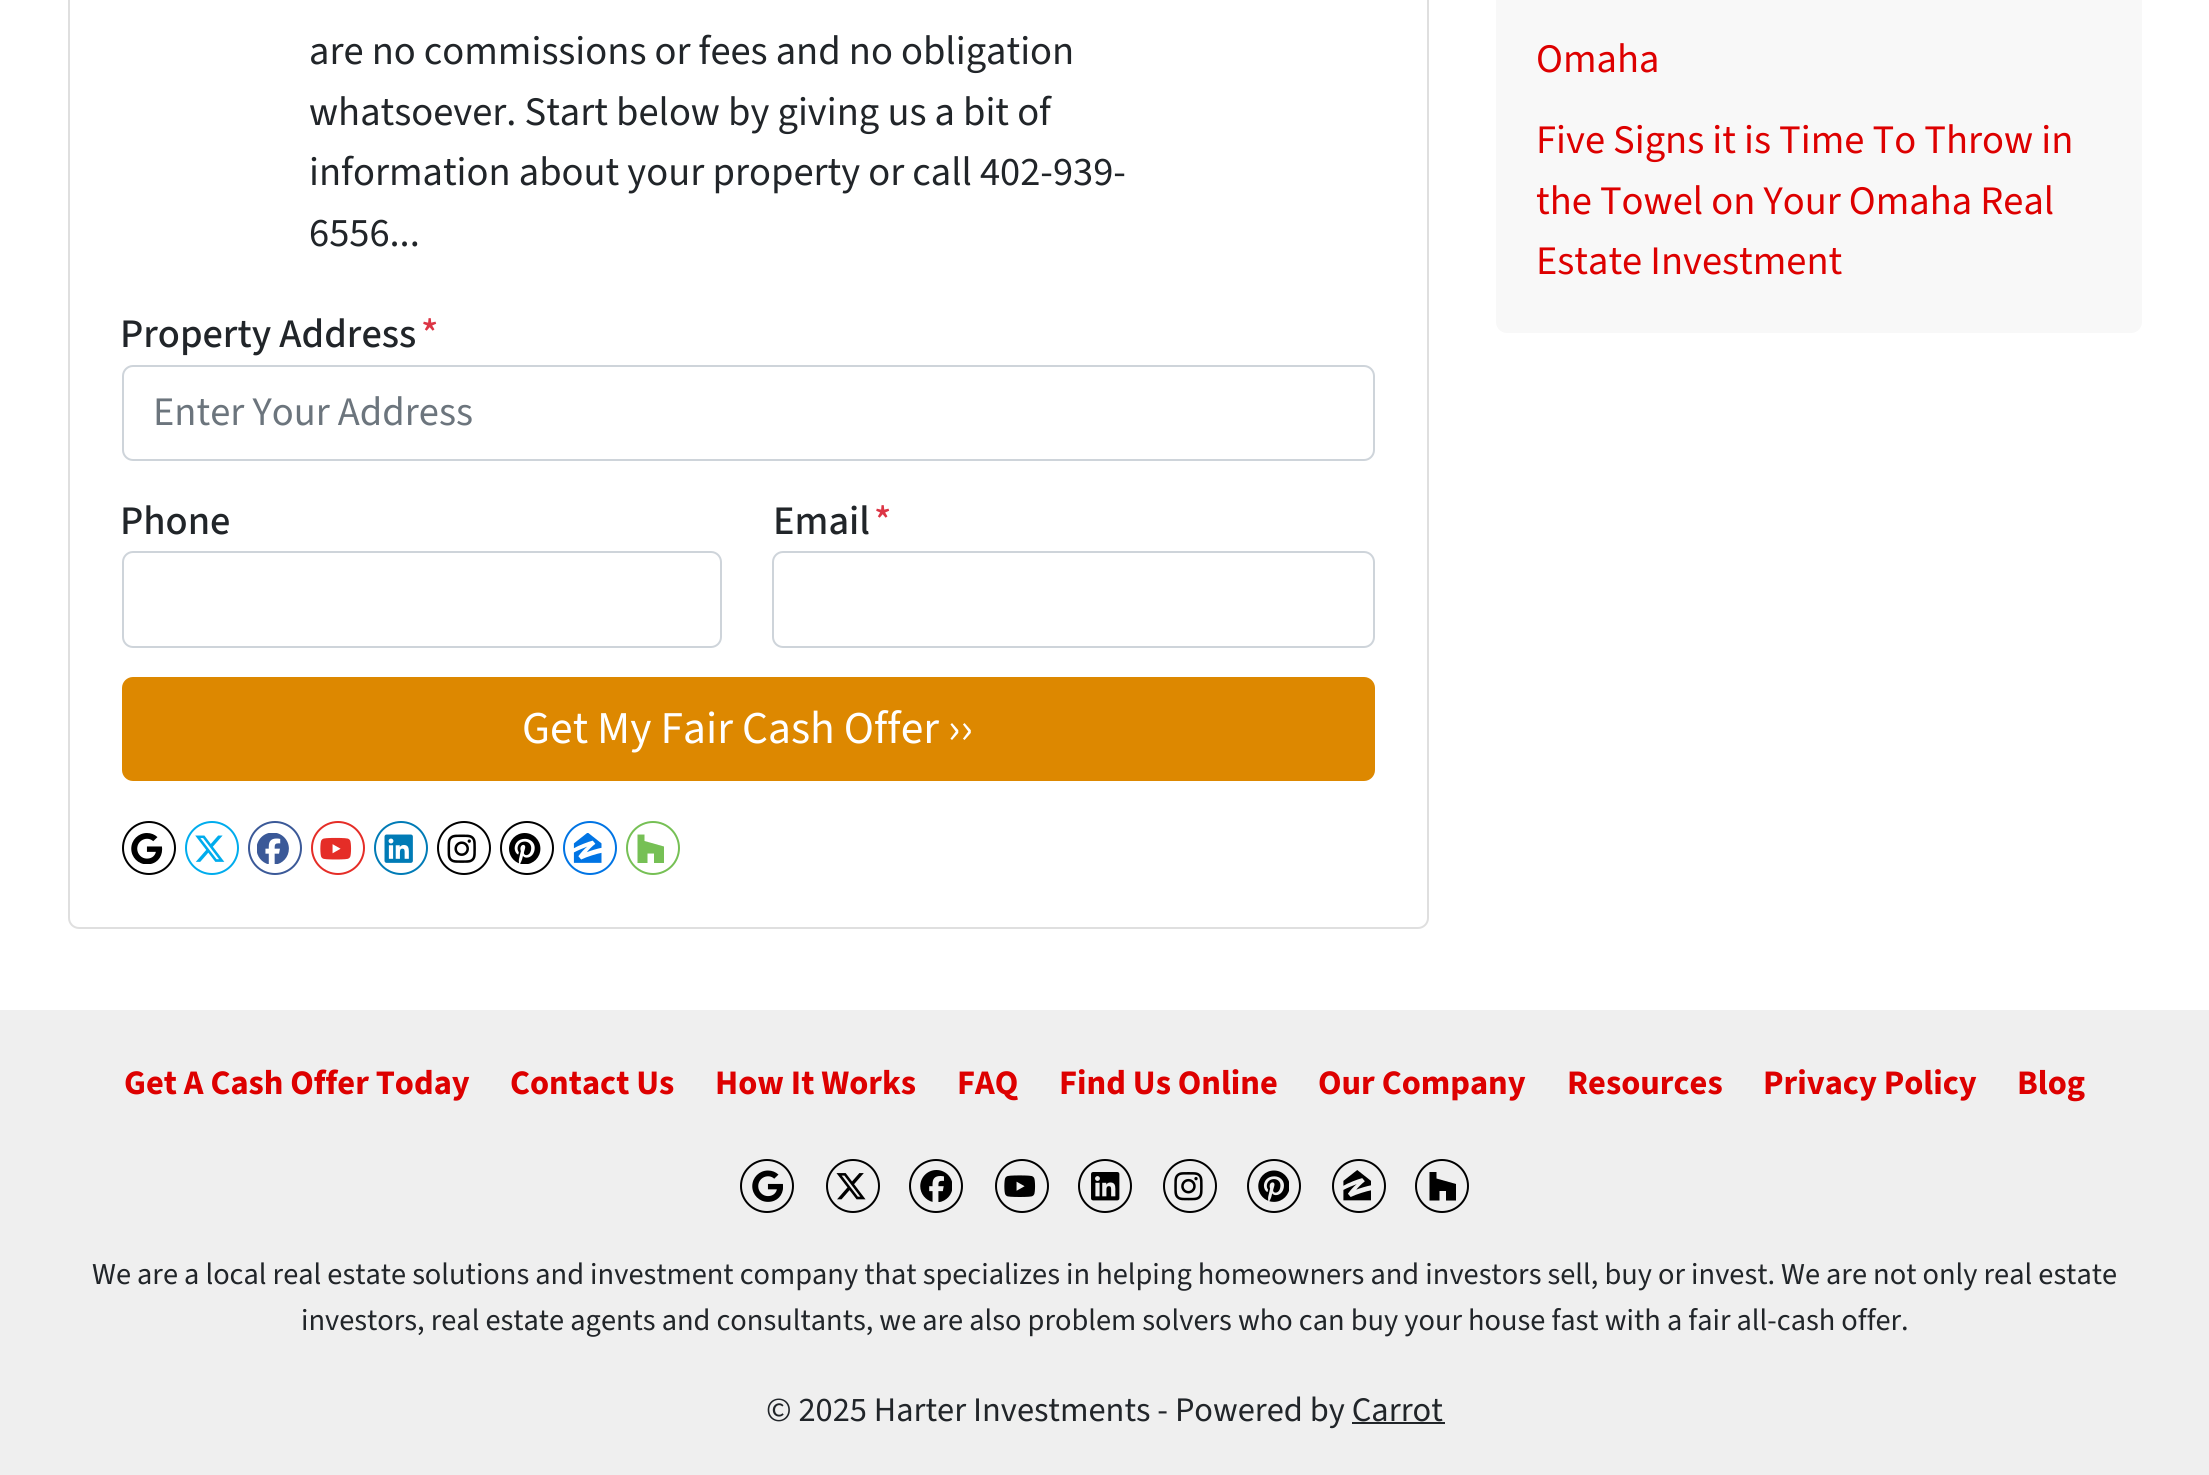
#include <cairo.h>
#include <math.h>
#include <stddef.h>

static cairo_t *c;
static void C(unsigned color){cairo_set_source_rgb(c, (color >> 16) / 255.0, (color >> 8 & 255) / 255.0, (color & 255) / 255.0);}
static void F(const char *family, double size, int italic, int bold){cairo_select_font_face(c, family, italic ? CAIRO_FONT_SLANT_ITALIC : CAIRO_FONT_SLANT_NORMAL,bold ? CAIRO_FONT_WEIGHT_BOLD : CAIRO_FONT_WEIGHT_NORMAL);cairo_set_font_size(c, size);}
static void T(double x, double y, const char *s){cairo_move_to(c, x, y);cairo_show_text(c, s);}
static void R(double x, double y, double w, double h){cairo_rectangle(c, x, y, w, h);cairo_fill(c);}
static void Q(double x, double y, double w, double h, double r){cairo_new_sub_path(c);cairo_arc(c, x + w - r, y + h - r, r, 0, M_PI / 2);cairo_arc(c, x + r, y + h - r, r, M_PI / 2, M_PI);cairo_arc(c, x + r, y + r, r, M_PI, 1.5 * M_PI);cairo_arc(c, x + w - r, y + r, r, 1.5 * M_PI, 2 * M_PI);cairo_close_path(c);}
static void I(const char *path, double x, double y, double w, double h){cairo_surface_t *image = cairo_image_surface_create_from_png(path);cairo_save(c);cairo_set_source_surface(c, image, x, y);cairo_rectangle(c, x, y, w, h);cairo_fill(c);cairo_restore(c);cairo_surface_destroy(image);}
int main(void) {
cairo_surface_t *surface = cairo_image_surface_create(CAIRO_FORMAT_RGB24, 2209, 1475);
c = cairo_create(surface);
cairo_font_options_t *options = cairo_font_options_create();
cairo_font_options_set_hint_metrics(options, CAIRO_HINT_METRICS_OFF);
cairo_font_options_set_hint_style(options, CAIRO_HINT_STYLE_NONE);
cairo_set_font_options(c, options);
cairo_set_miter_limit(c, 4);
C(0xffffff);
cairo_paint(c);
Q(69,-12,1359,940,10);
C(0xdfdfdf);
cairo_stroke(c);
F("Source Sans 3",40.5,0,0);
C(0x212529);
T(309,64,"are no commissions or fees and no obligation");
T(309,125,"whatsoever. Start below by giving us a bit of");
T(309,185,"information about your property or call 402-939-");
T(309,246,"6556...");
F("Source Sans 3 Medium",40.5,0,0);
T(120,347,"Property Address");
C(0xdc3545);
T(421,347,"*");
Q(123,366,1251,94,10);
C(0xced4da);
cairo_stroke(c);
F("Source Sans 3",40.5,0,0);
C(0x6c757d);
T(153,425,"Enter Your Address");
F("Source Sans 3 Medium",40.5,0,0);
C(0x212529);
T(120,534,"Phone");
Q(123,552,598,95,10);
C(0xced4da);
cairo_stroke(c);
C(0x212529);
T(773,534,"Email");
C(0xdc3545);
T(874,534,"*");
Q(773,552,601,95,10);
C(0xced4da);
cairo_stroke(c);
C(0xdd8800);
Q(123,678,1251,102,10);
cairo_fill_preserve(c);
cairo_stroke(c);
F("Source Sans 3",45.5,0,0);
C(0xffffff);
T(522,743,"Get My Fair Cash Offer ››");
cairo_new_path(c);
cairo_arc(c,149,848,26,0,2 * M_PI);
C(0x000000);
cairo_stroke(c);
I("1.png",131,833,32,31);
cairo_arc(c,212,848,26,0,2 * M_PI);
C(0x00aced);
cairo_stroke(c);
I("2.png",195,835,30,27);
cairo_arc(c,275,848,26,0,2 * M_PI);
C(0x3b5998);
cairo_stroke(c);
I("3.png",257,833,32,31);
cairo_arc(c,338,848,26,0,2 * M_PI);
C(0xe52d27);
cairo_stroke(c);
I("4.png",320,837,32,23);
cairo_arc(c,401,848,26,0,2 * M_PI);
C(0x007bb6);
cairo_stroke(c);
I("5.png",384,834,29,29);
cairo_arc(c,464,848,26,0,2 * M_PI);
C(0x000000);
cairo_stroke(c);
I("6.png",447,834,29,29);
cairo_arc(c,527,848,26,0,2 * M_PI);
cairo_stroke(c);
I("7.png",509,833,32,31);
cairo_arc(c,590,848,26,0,2 * M_PI);
C(0x0074e4);
cairo_stroke(c);
I("8.png",573,833,29,30);
cairo_arc(c,653,848,26,0,2 * M_PI);
C(0x76c055);
cairo_stroke(c);
cairo_new_path(c);
cairo_move_to(c,654,853.5);
cairo_line_to(c,647.5,853.5);
cairo_line_to(c,647.5,863);
cairo_line_to(c,637.5,863);
cairo_line_to(c,637.5,834.5);
cairo_line_to(c,644.5,834.5);
cairo_line_to(c,644.5,841);
cairo_line_to(c,664,846.5);
cairo_line_to(c,664,863);
cairo_line_to(c,654,863);
cairo_close_path(c);
cairo_fill(c);
C(0xf8f8f8);
Q(1496,-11,646,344,11);
cairo_fill(c);
F("Source Sans 3",40.5,0,0);
C(0xdd0000);
T(1536,72,"Omaha");
T(1536,153,"Five Signs it is Time To Throw in");
T(1536,214,"the Towel on Your Omaha Real");
T(1536,274,"Estate Investment");
C(0xefefef);
R(0,1010,2209,465);
F("Source Sans 3",34.4,0,1);
C(0xdd0000);
T(124,1094,"Get A Cash Offer Today");
T(510,1094,"Contact Us");
T(715,1094,"How It Works");
T(957,1094,"FAQ");
T(1059,1094,"Find Us Online");
T(1318,1094,"Our Company");
T(1567,1094,"Resources");
T(1763,1094,"Privacy Policy");
T(2017,1094,"Blog");
cairo_new_path(c);
cairo_arc(c,767,1186,26,0,2 * M_PI);
C(0x000000);
cairo_stroke(c);
I("9.png",752,1170,31,32);
cairo_arc(c,853,1186,26,0,2 * M_PI);
cairo_stroke(c);
I("10.png",836,1173,30,27);
cairo_arc(c,936,1186,26,0,2 * M_PI);
cairo_stroke(c);
I("11.png",920,1170,32,32);
cairo_arc(c,1022,1186,26,0,2 * M_PI);
cairo_stroke(c);
I("12.png",1004,1175,32,22);
cairo_arc(c,1105,1186,26,0,2 * M_PI);
cairo_stroke(c);
I("13.png",1091,1172,29,29);
cairo_arc(c,1190,1186,26,0,2 * M_PI);
cairo_stroke(c);
I("14.png",1174,1172,29,29);
cairo_arc(c,1274,1186,26,0,2 * M_PI);
cairo_stroke(c);
I("15.png",1258,1170,31,32);
cairo_arc(c,1359,1186,26,0,2 * M_PI);
cairo_stroke(c);
I("16.png",1343,1170,28,31);
cairo_arc(c,1442,1186,26,0,2 * M_PI);
cairo_stroke(c);
cairo_new_path(c);
cairo_move_to(c,1446,1191);
cairo_line_to(c,1439.5,1191);
cairo_line_to(c,1439.5,1200.5);
cairo_line_to(c,1429.5,1200.5);
cairo_line_to(c,1429.5,1172);
cairo_line_to(c,1436.5,1172);
cairo_line_to(c,1436.5,1178.5);
cairo_line_to(c,1456,1184);
cairo_line_to(c,1456,1200.5);
cairo_line_to(c,1446,1200.5);
cairo_close_path(c);
cairo_fill(c);
F("Source Sans 3",30.38,0,0);
C(0x212529);
T(92,1284,"We are a local real estate solutions and investment company that specializes in helping homeowners and investors sell, buy or invest. We are not only real estate");
T(301,1330,"investors, real estate agents and consultants, we are also problem solvers who can buy your house fast with a fair all-cash offer.");
F("Source Sans 3",34.4,0,0);
T(766,1421,"© 2025 Harter Investments - Powered by Carrot");
R(1352,1422,93,2);
cairo_surface_write_to_png(surface, "o.png");
cairo_font_options_destroy(options);
cairo_destroy(c);
cairo_surface_destroy(surface);
return 0;
}
